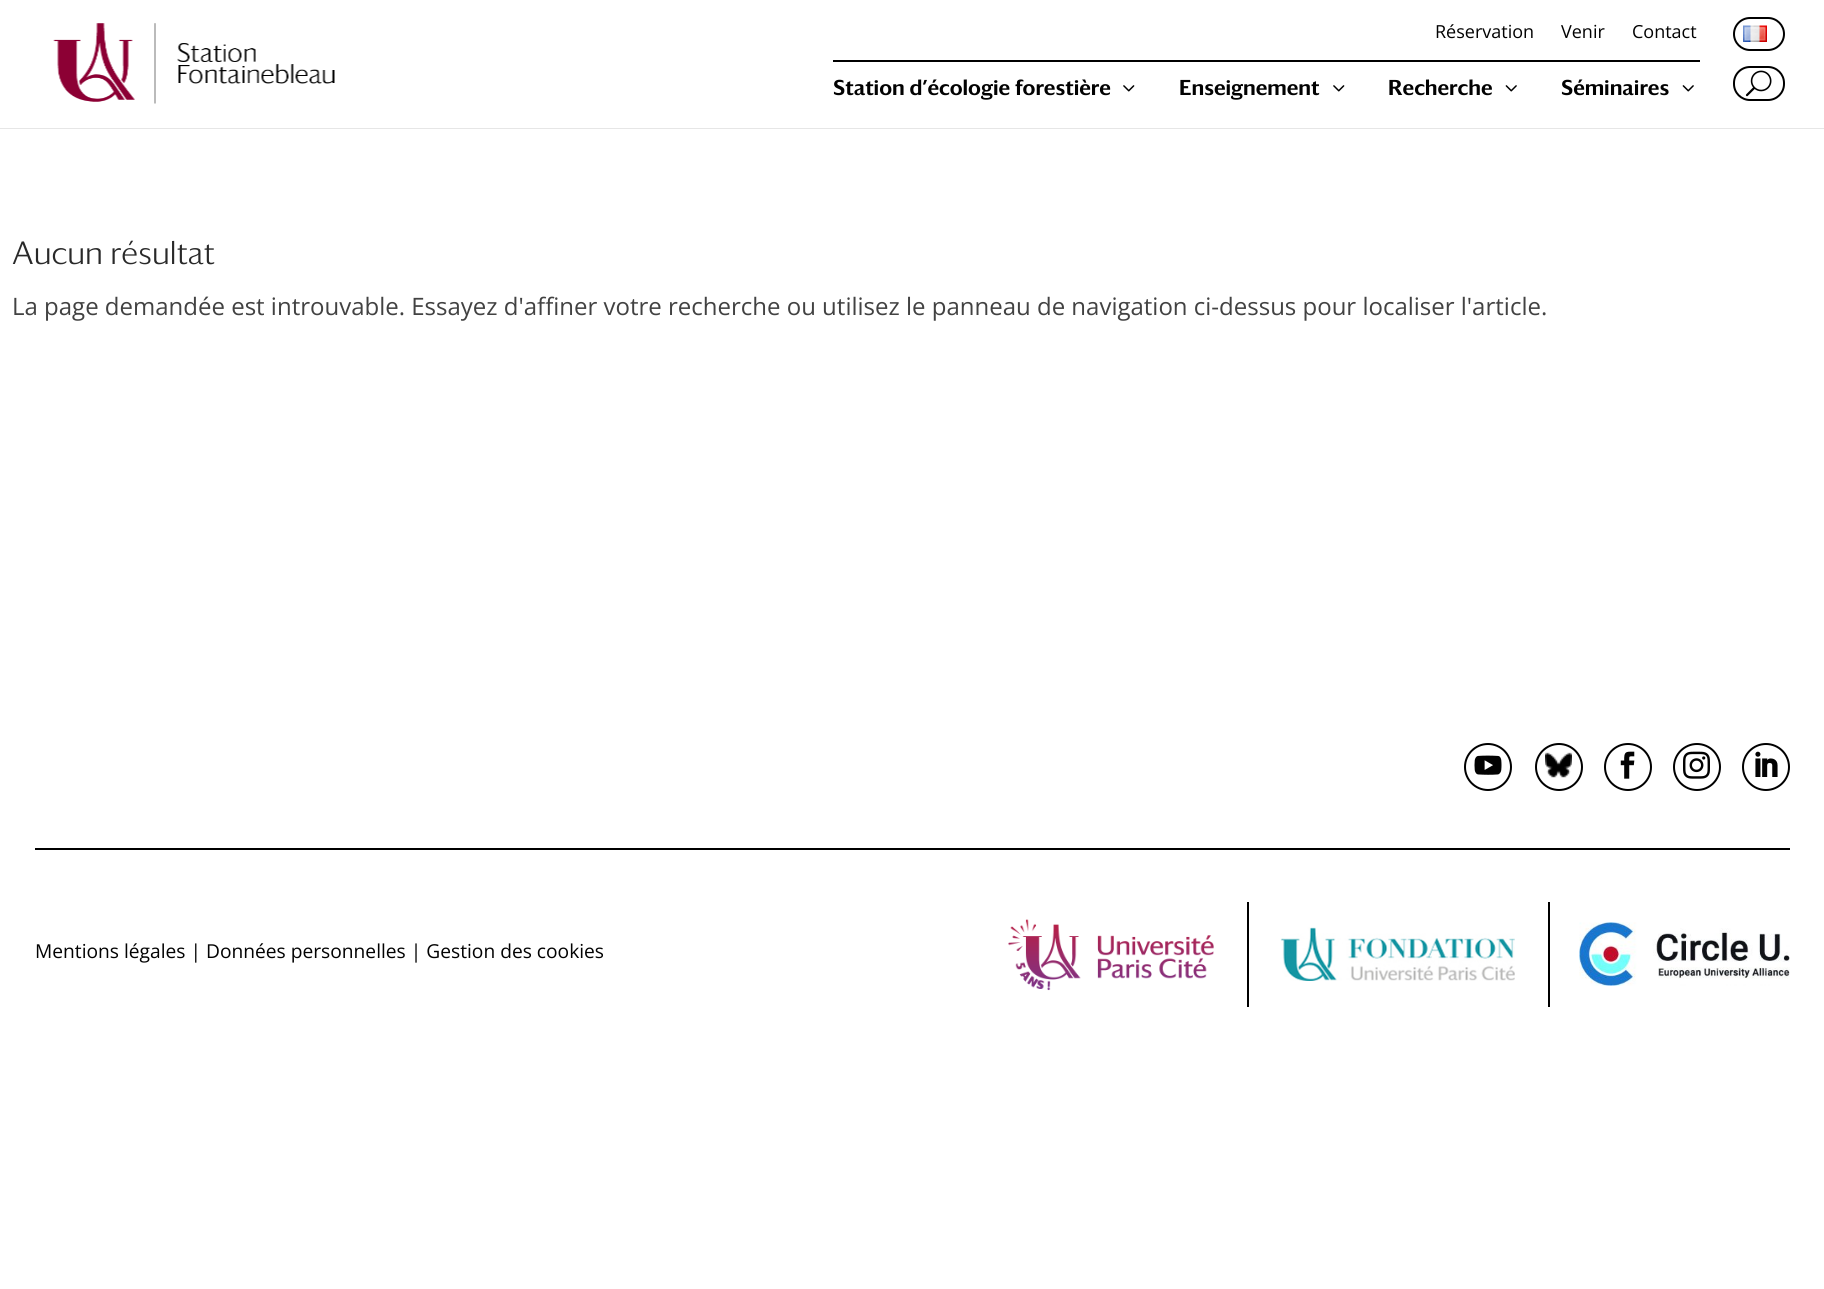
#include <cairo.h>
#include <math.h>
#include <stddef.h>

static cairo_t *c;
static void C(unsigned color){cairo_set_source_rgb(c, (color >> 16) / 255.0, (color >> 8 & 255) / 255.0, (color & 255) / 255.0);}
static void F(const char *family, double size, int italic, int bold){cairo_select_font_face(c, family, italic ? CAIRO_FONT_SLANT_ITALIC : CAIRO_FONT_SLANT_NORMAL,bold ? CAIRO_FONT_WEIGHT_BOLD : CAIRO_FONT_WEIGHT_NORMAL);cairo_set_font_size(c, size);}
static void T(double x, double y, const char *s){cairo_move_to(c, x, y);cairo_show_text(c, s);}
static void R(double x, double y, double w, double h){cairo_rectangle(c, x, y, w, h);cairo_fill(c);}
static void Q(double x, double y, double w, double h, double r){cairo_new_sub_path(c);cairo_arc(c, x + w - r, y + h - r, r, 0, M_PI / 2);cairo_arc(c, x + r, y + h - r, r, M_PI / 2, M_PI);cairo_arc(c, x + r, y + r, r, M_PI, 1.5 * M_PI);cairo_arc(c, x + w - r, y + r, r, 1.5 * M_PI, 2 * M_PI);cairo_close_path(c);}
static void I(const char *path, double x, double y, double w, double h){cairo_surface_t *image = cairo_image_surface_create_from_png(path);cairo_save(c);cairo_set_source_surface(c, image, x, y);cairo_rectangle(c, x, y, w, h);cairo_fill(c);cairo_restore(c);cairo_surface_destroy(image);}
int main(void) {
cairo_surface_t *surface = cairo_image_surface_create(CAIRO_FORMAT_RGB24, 1824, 1289);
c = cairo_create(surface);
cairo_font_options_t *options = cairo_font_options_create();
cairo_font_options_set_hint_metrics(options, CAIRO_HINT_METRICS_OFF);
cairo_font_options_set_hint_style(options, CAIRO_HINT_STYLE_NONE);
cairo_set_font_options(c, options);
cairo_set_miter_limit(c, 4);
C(0xffffff);
cairo_paint(c);
F("Open Sans",18,0,0);
C(0x020202);
T(1435,38,"Réservation");
T(1561,38,"Venir");
T(1632,38,"Contact");
Q(1734,18,50,32,16);
C(0x000000);
cairo_stroke(c);
I("1.png",1743,25,24,17);
C(0xe6e6e6);
R(0,128,1824,1);
I("2.png",53,23,282,81);
C(0x000000);
R(833,60,867,2);
F("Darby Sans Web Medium",21,0,0);
C(0x020202);
T(833,95,"Station d’écologie forestière");
I("3.png",1123,85,12,7);
T(1179,95,"Enseignement");
I("3.png",1333,85,12,7);
T(1388,95,"Recherche");
I("4.png",1505,85,12,7);
T(1561,95,"Séminaires");
I("4.png",1682,85,12,7);
Q(1734,67,50,33,16);
C(0x000000);
cairo_stroke(c);
I("5.png",1745,70,27,27);
F("Darby Sans Web Light",31.25,0,0);
C(0x292929);
T(12,264,"Aucun résultat");
F("Open Sans",24,0,0);
C(0x424242);
T(12,315,"La page demandée est introuvable. Essayez d'affiner votre recherche ou utilisez le panneau de navigation ci-dessus pour localiser l'article.");
C(0x000000);
R(35,848,1755,2);
cairo_new_path(c);
cairo_arc(c,1488,767,23,0,2 * M_PI);
cairo_stroke(c);
I("6.png",1474,755,28,20);
cairo_arc(c,1559,767,23,0,2 * M_PI);
cairo_stroke(c);
I("7.png",1545,752,27,26);
cairo_arc(c,1628,767,23,0,2 * M_PI);
cairo_stroke(c);
I("8.png",1620,751,15,28);
cairo_arc(c,1697,767,23,0,2 * M_PI);
cairo_stroke(c);
I("9.png",1683,751,27,28);
cairo_arc(c,1766,767,23,0,2 * M_PI);
cairo_stroke(c);
I("10.png",1755,751,23,26);
F("Open Sans",19.2,0,0);
C(0x020202);
T(35,958,"Mentions légales | Données personnelles | Gestion des cookies");
C(0x000000);
R(1247,902,2,105);
I("11.png",1008,919,206,72);
R(1548,902,2,105);
I("12.png",1280,927,235,54);
I("13.png",1579,922,211,64);
cairo_surface_write_to_png(surface, "o.png");
cairo_font_options_destroy(options);
cairo_destroy(c);
cairo_surface_destroy(surface);
return 0;
}
